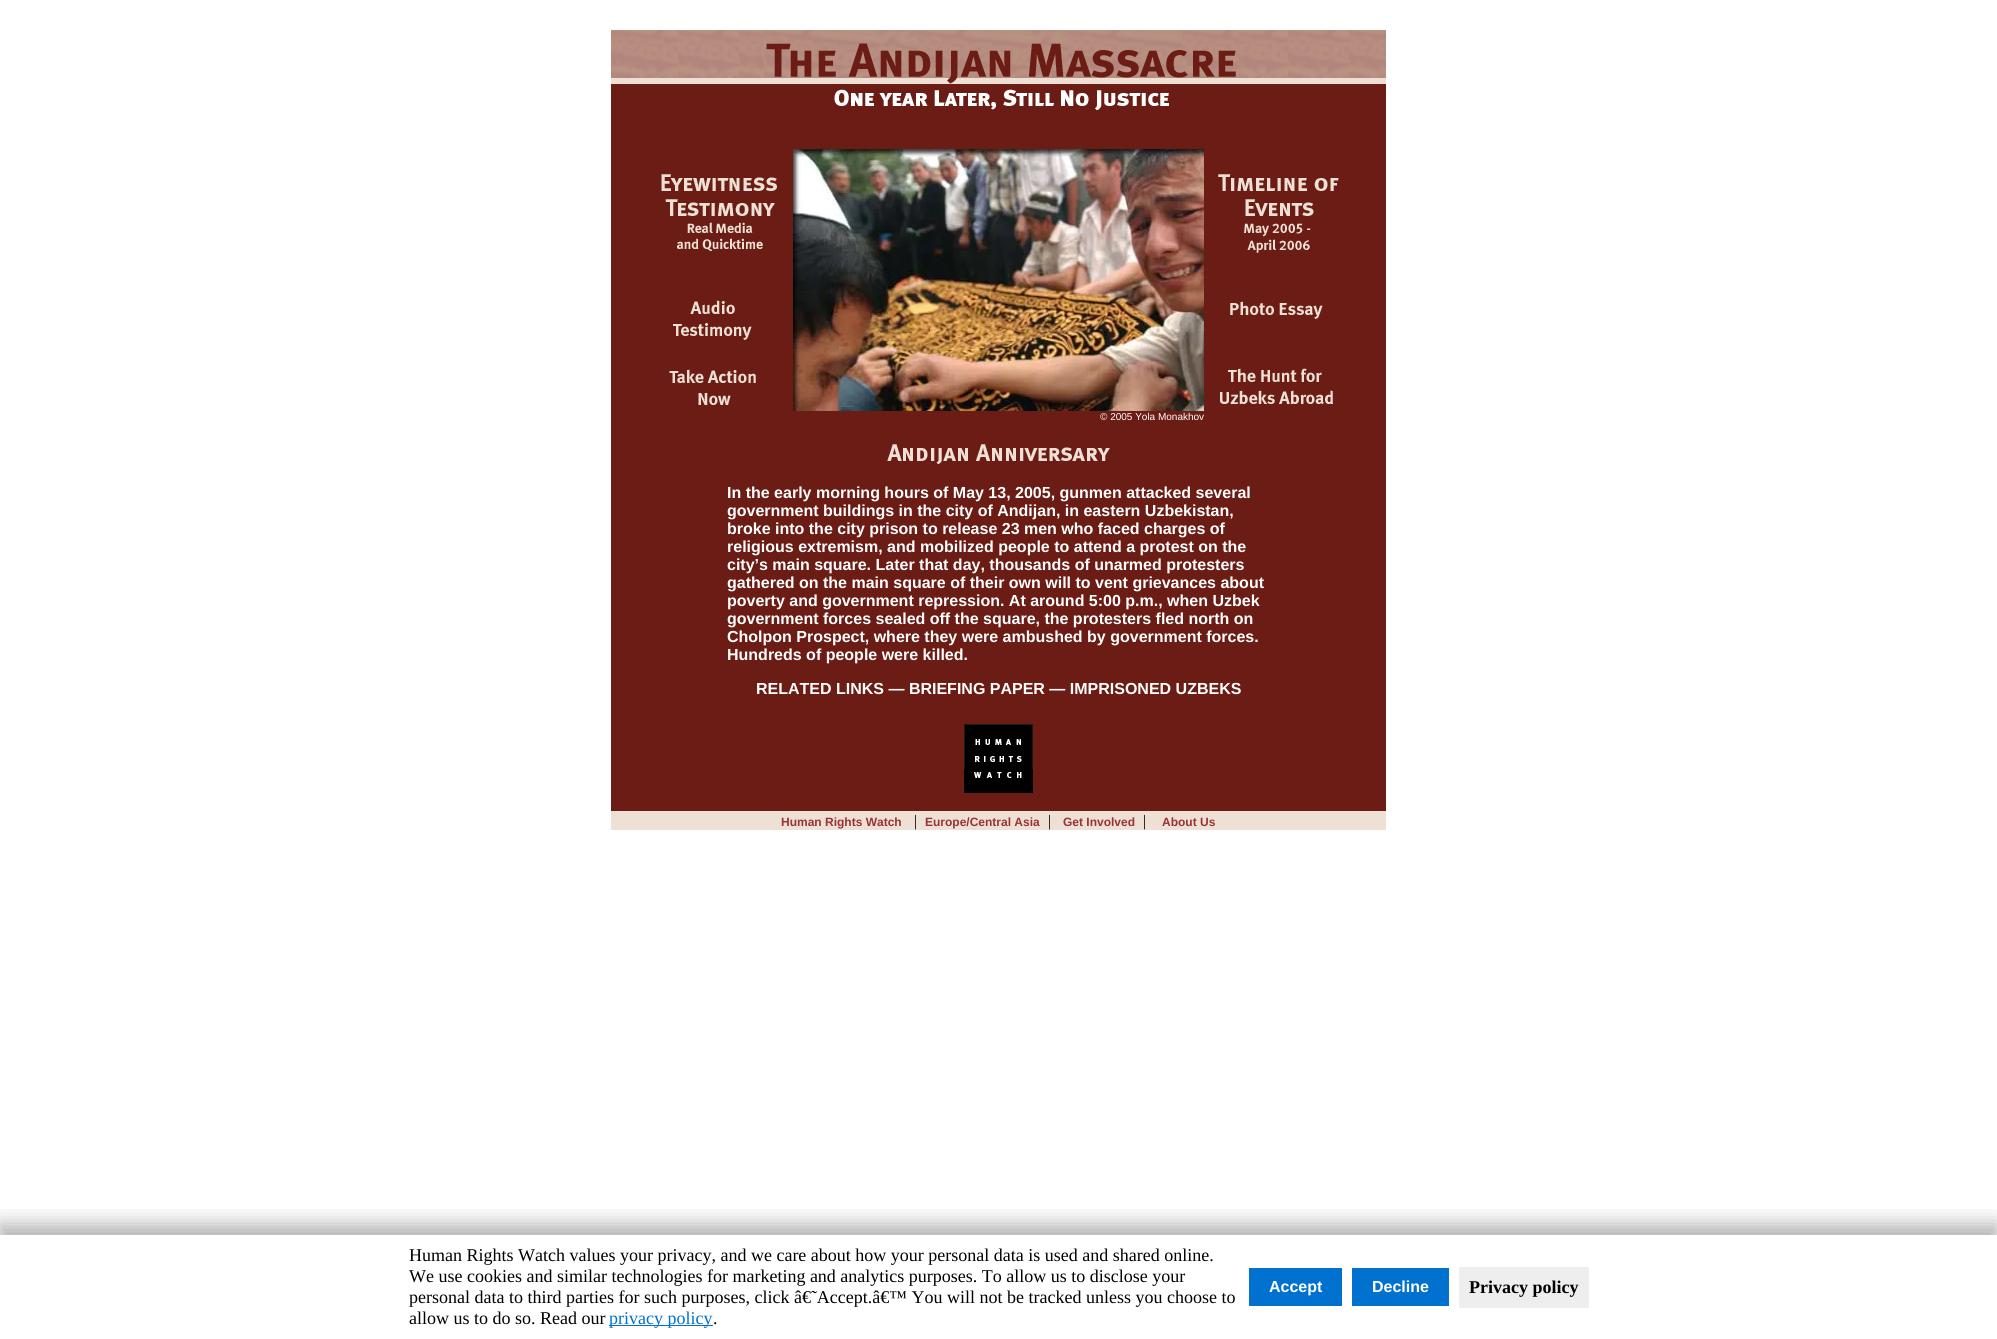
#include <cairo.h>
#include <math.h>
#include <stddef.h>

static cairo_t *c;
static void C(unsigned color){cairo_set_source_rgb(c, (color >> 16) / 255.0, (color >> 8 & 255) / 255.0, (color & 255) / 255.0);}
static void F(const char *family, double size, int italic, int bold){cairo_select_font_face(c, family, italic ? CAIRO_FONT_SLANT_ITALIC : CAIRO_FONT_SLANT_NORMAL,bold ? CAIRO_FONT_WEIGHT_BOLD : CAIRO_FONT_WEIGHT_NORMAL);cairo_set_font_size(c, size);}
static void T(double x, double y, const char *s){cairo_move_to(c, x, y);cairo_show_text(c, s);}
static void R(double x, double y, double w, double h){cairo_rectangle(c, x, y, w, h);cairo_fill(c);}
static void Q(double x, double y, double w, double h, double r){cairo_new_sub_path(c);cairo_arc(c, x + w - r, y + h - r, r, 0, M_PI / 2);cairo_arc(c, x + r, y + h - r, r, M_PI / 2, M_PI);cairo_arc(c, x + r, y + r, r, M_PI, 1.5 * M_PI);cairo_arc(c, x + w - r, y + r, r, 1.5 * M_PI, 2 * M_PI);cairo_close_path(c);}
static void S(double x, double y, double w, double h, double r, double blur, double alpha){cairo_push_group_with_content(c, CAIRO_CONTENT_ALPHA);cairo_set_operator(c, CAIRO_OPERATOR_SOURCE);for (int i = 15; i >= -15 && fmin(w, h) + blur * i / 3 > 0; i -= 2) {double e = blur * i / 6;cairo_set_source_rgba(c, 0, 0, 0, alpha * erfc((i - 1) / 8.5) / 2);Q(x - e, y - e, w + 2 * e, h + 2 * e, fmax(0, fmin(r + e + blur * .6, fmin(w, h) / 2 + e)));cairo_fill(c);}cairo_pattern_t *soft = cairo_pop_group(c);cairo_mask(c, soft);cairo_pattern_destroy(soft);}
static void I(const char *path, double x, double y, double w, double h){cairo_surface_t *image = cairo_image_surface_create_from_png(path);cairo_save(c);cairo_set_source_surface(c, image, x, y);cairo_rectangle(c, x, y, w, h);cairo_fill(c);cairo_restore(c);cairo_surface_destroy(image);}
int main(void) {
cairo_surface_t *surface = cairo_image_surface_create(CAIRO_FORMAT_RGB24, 1997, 1339);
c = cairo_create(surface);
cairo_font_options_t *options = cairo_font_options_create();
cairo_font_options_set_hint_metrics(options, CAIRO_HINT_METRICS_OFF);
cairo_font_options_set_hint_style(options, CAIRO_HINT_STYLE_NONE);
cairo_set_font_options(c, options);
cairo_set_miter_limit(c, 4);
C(0xffffff);
cairo_paint(c);
C(0x6b1c14);
R(611,84,775,727);
I("1.png",611,30,6,54);
I("2.png",617,30,769,54);
I("3.png",764,30,475,54);
I("4.png",834,89,335,22);
I("5.png",673,300,79,40);
I("6.png",1230,301,93,18);
I("7.png",669,369,87,36);
I("8.png",1220,368,113,37);
I("9.png",661,174,116,77);
I("10.png",1218,174,121,79);
I("11.png",793,149,411,262);
F("Liberation Sans",10,0,0);
C(0xffffff);
T(1100,420,"© 2005 Yola Monakhov");
I("12.png",887,444,223,21);
F("Liberation Sans",16,0,1);
T(727,498,"In the early morning hours of May 13, 2005, gunmen attacked several");
T(727,516,"government buildings in the city of Andijan, in eastern Uzbekistan,");
T(727,534,"broke into the city prison to release 23 men who faced charges of");
T(727,552,"religious extremism, and mobilized people to attend a protest on the");
T(727,570,"city’s main square. Later that day, thousands of unarmed protesters");
T(727,588,"gathered on the main square of their own will to vent grievances about");
T(727,606,"poverty and government repression. At around 5:00 p.m., when Uzbek");
T(727,624,"government forces sealed off the square, the protesters fled north on");
T(727,642,"Cholpon Prospect, where they were ambushed by government forces.");
T(727,660,"Hundreds of people were killed.");
T(756,694,"RELATED LINKS — BRIEFING PAPER — IMPRISONED UZBEKS");
I("13.png",964,724,69,69);
C(0xeee0d4);
R(611,811,775,19);
F("Liberation Sans",12,0,1);
C(0x993333);
T(781,826,"Human Rights Watch");
F("Liberation Serif",16,0,0);
C(0x000000);
T(914,826,"|");
F("Liberation Sans",12,0,1);
C(0x993333);
T(925,826,"Europe/Central Asia");
F("Liberation Serif",16,0,0);
C(0x000000);
T(1048,826,"|");
F("Liberation Sans",12,0,1);
C(0x993333);
T(1063,826,"Get Involved");
F("Liberation Serif",16,0,0);
C(0x000000);
T(1143,826,"|");
F("Liberation Sans",12,0,1);
C(0x993333);
T(1162,826,"About Us");
cairo_save(c);
cairo_rectangle(c,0,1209,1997,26);
cairo_clip(c);
C(0x000000);
S(-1,1224,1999,106,0,10,.3);
cairo_restore(c);
F("Liberation Serif",18,0,0);
C(0x000000);
T(409,1261,"Human Rights Watch values your privacy, and we care about how your personal data is used and shared online.");
T(409,1282,"We use cookies and similar technologies for marketing and analytics purposes. To allow us to disclose your");
T(409,1303,"personal data to third parties for such purposes, click â€˜Accept.â€™ You will not be tracked unless you choose to");
T(409,1324,"allow us to do so. Read our");
C(0x0071ce);
R(609,1325,104,1);
T(609,1324,"privacy policy");
C(0x000000);
T(713,1324,".");
C(0x0071ce);
R(1249,1268,93,38);
F("Liberation Sans",16,0,1);
C(0xffffff);
T(1269,1292,"Accept");
C(0x0071ce);
R(1352,1268,97,38);
C(0xffffff);
T(1372,1292,"Decline");
C(0xeeeeee);
R(1459,1267,130,41);
F("Liberation Serif",18,0,1);
C(0x000000);
T(1469,1293,"Privacy policy");
cairo_surface_write_to_png(surface, "o.png");
cairo_font_options_destroy(options);
cairo_destroy(c);
cairo_surface_destroy(surface);
return 0;
}
